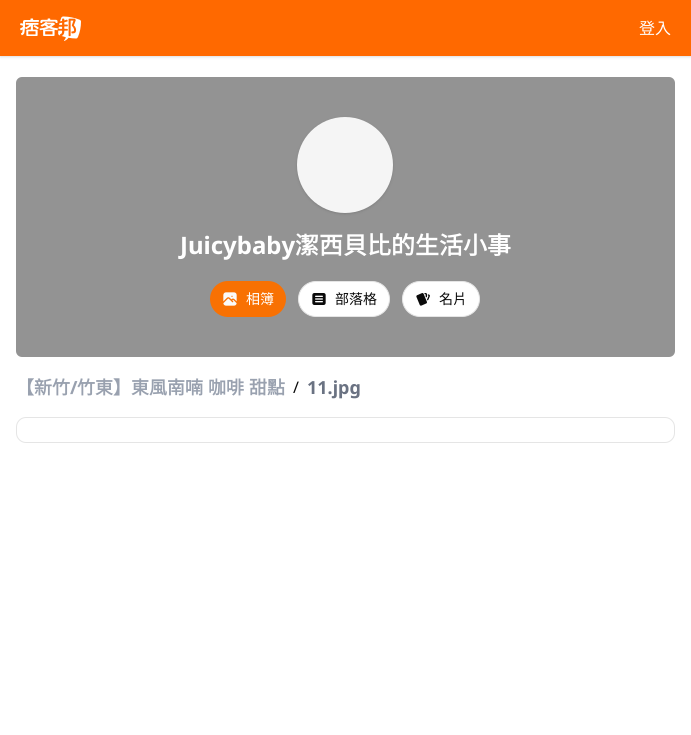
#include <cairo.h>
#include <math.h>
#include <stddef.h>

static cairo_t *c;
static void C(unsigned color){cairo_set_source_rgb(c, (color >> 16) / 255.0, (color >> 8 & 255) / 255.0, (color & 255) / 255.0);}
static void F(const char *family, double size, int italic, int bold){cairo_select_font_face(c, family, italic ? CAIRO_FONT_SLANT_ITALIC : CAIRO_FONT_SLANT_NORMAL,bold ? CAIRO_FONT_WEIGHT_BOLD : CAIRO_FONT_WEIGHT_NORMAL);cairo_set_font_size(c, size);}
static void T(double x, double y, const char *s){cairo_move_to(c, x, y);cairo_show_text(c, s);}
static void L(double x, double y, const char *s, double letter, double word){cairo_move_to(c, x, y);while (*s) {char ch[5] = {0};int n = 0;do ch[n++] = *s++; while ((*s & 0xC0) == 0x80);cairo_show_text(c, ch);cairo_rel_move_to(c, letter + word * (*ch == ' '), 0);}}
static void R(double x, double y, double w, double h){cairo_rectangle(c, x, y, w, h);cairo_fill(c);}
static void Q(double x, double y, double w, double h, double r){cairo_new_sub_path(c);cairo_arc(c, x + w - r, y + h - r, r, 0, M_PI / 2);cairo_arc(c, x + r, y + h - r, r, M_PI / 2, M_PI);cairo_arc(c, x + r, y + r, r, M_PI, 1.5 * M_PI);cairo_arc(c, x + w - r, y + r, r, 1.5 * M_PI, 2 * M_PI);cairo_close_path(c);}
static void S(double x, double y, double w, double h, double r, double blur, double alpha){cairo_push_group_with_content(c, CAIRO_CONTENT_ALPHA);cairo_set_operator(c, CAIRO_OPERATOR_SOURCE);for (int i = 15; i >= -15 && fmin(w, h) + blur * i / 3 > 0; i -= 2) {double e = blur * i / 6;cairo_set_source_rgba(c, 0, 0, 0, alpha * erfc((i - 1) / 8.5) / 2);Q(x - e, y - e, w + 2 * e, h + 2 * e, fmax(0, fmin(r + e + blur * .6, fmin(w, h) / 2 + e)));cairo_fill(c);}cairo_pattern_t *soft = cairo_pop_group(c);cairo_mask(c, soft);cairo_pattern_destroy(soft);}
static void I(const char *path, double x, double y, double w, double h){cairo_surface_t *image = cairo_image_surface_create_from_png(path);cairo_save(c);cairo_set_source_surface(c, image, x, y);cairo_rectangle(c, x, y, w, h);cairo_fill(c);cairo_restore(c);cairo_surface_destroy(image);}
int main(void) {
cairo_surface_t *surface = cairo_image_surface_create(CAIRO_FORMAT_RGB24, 691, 735);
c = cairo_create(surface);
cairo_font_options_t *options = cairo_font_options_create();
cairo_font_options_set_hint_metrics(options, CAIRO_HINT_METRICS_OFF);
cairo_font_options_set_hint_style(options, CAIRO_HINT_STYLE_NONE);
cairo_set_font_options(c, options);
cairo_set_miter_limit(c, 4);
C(0xffffff);
cairo_paint(c);
C(0x000000);
S(1,2,689,54,0,1,.1);
S(0,1,691,56,0,1.5,.1);
C(0xff6900);
R(0,0,691,56);
I("1.png",20,16,61,25);
F("Noto Sans CJK TC",16,0,0);
C(0xffffff);
T(639,34,"登入");
C(0x939393);
Q(16,77,659,280,6);
cairo_fill(c);
C(0x000000);
S(298,119,94,94,47,1,.1);
S(297,118,96,96,48,1.5,.1);
C(0xf5f5f5);
cairo_arc(c,345,165,48,0,2 * M_PI);
cairo_fill(c);
F("Noto Sans",24,0,1);
C(0xffffff);
T(180,254,"Juicybaby");
F("Noto Sans CJK TC",24,0,1);
T(295,254,"潔西貝比的生活小事");
C(0xf87103);
Q(210,281,76,36,18);
cairo_fill(c);
I("2.png",223,292,14,14);
F("Noto Sans CJK TC",14,0,0);
C(0xffffff);
T(246,304,"相簿");
Q(298.5,281.5,91,35,17.5);
cairo_fill_preserve(c);
C(0xe5e5e5);
cairo_set_line_width(c,1);
cairo_stroke(c);
I("3.png",312,293,14,12);
C(0x0a0a0a);
T(335,304,"部落格");
C(0xffffff);
Q(402.5,281.5,77,35,17.5);
cairo_fill_preserve(c);
C(0xe5e5e5);
cairo_stroke(c);
I("4.png",416,293,14,13);
C(0x0a0a0a);
T(439,304,"名片");
F("Noto Sans CJK TC",18,0,1);
C(0x99a1af);
T(16,394,"【新竹");
F("Noto Sans",18,0,1);
T(70,394,"/");
F("Noto Sans CJK TC",18,0,1);
L(77,394,"竹東】東風南喃 咖啡 甜點",0,1);
F("Noto Sans",16,0,0);
C(0x0a0a0a);
T(293,393,"/");
F("Noto Sans",18,0,1);
C(0x6a7282);
T(307,394,"11.jpg");
Q(16.5,417.5,658,25,9.5);
C(0xe5e5e5);
cairo_stroke(c);
cairo_surface_write_to_png(surface, "o.png");
cairo_font_options_destroy(options);
cairo_destroy(c);
cairo_surface_destroy(surface);
return 0;
}
